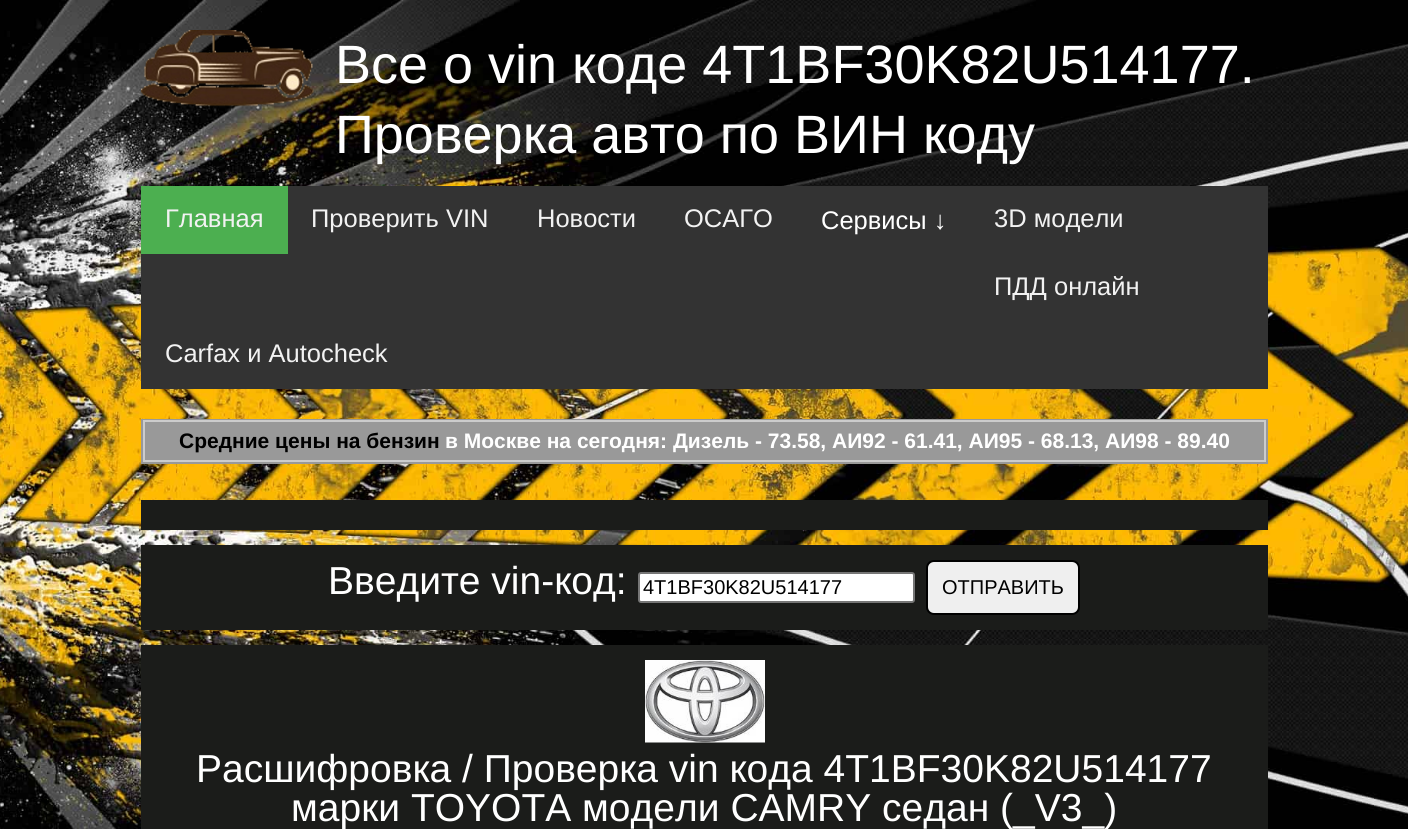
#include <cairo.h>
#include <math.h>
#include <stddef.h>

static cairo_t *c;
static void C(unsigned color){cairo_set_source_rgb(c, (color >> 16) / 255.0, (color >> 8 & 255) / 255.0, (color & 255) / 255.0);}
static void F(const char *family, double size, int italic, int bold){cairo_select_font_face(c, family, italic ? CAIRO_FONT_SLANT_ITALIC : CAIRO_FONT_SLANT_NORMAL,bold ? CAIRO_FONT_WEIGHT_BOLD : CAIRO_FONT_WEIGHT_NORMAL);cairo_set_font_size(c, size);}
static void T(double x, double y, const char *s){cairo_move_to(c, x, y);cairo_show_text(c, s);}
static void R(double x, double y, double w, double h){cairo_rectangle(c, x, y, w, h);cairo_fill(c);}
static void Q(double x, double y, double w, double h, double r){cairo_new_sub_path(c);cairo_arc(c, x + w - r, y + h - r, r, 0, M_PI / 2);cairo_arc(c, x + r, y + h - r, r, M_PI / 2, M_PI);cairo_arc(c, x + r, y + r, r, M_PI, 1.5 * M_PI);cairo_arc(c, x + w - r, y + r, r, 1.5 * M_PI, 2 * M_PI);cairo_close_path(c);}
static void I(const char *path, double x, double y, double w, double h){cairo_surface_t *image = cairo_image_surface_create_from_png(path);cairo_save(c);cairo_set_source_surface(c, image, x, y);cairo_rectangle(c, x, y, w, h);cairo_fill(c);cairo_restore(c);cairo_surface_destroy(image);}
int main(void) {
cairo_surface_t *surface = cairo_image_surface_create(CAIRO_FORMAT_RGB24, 1408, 829);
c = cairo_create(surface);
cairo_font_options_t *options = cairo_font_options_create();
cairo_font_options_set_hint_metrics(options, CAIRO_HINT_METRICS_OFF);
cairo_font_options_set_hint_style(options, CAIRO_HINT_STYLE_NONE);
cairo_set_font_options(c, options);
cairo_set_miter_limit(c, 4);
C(0xffffff);
cairo_paint(c);
I("1.png",0,0,1408,829);
I("2.png",141,30,173,77);
F("Liberation Sans",54,0,0);
C(0xffffff);
T(335,83,"Все о vin коде 4T1BF30K82U514177.");
T(335,153,"Проверка авто по ВИН коду");
C(0x333333);
R(141,186,1127,203);
C(0x4caf50);
R(141,186,147,68);
F("Liberation Sans",25.5,0,0);
C(0xf2f2f2);
T(165,227,"Главная");
T(311,227,"Проверить VIN");
T(537,227,"Новости");
T(684,227,"ОСАГО");
C(0xffffff);
T(821,229,"Сервисы ↓");
C(0xf2f2f2);
T(994,227,"3D модели");
T(994,295,"ПДД онлайн");
T(165,362,"Carfax и Autocheck");
C(0x999999);
R(141,419,1127,45);
cairo_rectangle(c,144,421,1121,40);
C(0xcccccc);
cairo_stroke(c);
F("Liberation Sans",21,0,1);
C(0x000000);
T(179,448,"Средние цены на бензин");
C(0xffffff);
T(445,448,"в Москве на сегодня: Дизель - 73.58, АИ92 - 61.41, АИ95 - 68.13, АИ98 - 89.40");
C(0x1b1c1a);
R(141,500,1127,30);
R(141,545,1127,85);
F("Liberation Sans",39,0,0);
C(0xffffff);
T(328,594,"Введите vin-код:");
Q(639,573,275,29,2);
cairo_fill_preserve(c);
C(0x767676);
cairo_stroke(c);
F("Liberation Sans",20,0,0);
C(0x000000);
T(643,594,"4T1BF30K82U514177");
C(0xefefef);
Q(927,561,152,53,7);
cairo_fill_preserve(c);
C(0x000000);
cairo_stroke(c);
T(942,594,"ОТПРАВИТЬ");
C(0x1b1c1a);
R(141,645,1127,184);
I("3.png",645,660,120,83);
F("Liberation Sans",39,0,0);
C(0xffffff);
T(196,782,"Расшифровка / Проверка vin кода 4T1BF30K82U514177");
T(291,821,"марки TOYOTA модели CAMRY седан (_V3_)");
cairo_surface_write_to_png(surface, "o.png");
cairo_font_options_destroy(options);
cairo_destroy(c);
cairo_surface_destroy(surface);
return 0;
}
